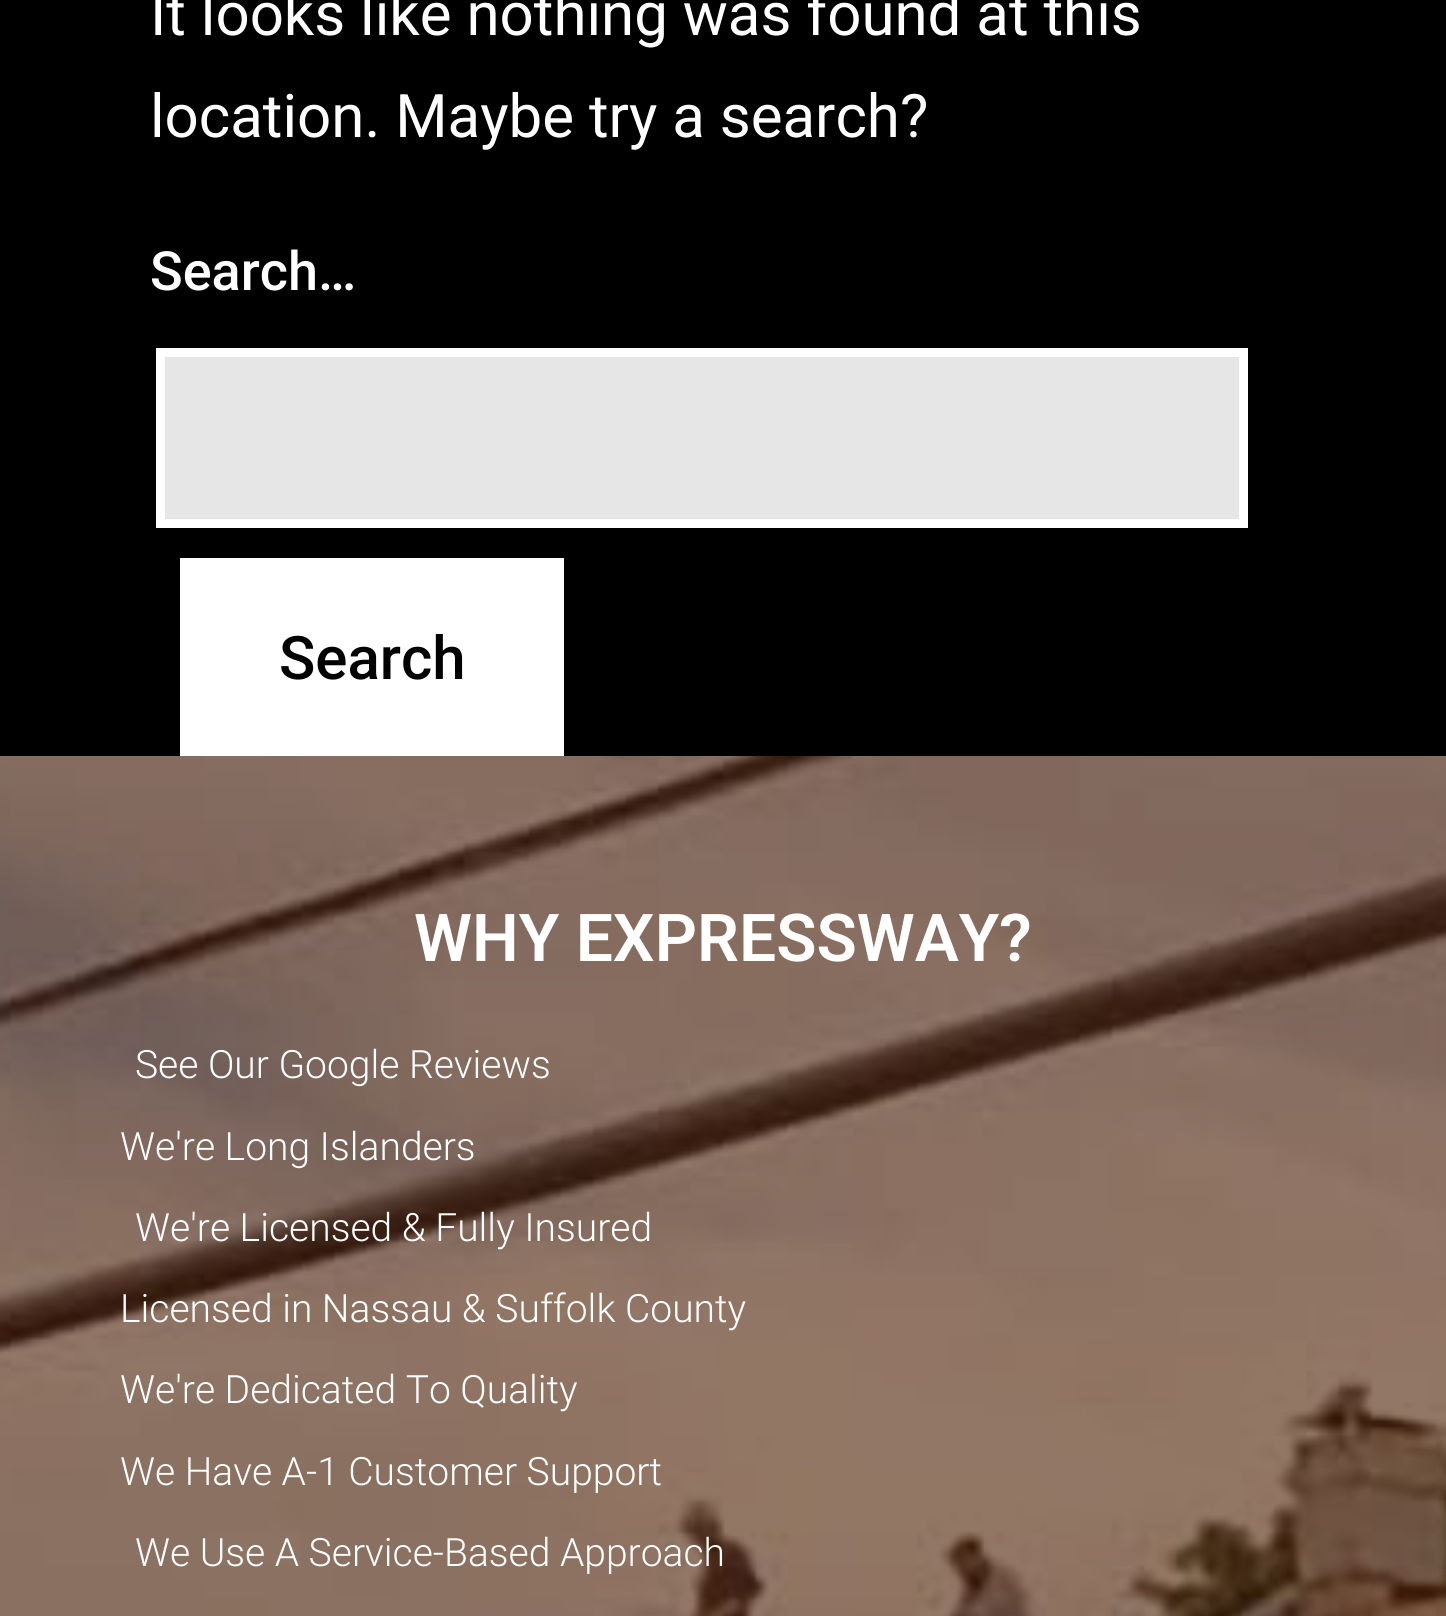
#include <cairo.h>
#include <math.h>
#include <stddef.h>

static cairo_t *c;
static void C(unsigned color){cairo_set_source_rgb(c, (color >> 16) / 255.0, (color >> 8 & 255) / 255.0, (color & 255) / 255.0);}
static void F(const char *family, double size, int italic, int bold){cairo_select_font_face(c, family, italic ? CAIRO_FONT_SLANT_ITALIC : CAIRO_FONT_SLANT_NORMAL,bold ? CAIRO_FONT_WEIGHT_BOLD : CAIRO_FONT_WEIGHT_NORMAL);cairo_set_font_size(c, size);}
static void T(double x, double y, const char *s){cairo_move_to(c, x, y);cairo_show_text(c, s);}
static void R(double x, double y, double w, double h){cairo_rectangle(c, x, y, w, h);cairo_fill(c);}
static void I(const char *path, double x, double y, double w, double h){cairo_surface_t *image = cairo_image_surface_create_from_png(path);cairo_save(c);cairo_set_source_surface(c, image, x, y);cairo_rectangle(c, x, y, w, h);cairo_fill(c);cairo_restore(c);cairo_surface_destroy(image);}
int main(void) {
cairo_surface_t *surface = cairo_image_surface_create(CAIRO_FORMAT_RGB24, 1446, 1616);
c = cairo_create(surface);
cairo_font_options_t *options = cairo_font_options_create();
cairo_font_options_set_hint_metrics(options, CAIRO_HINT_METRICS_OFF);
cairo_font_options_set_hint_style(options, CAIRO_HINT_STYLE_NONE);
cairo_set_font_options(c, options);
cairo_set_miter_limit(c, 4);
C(0x000000);
cairo_paint(c);
F("Roboto",60,0,0);
C(0xffffff);
T(150,35,"It looks like nothing was found at this");
T(150,137,"location. Maybe try a search?");
F("Roboto Medium",54,0,0);
T(150,290,"Search…");
C(0xe6e6e6);
cairo_rectangle(c,160.5,352.5,1083,171);
cairo_fill_preserve(c);
C(0xffffff);
cairo_set_line_width(c,9);
cairo_stroke(c);
R(180,558,384,198);
F("Roboto Medium",60,0,0);
C(0x000000);
T(279,679,"Search");
I("1.png",0,756,1446,860);
F("Roboto SemiBold",66,0,0);
C(0xffffff);
T(414,961,"WHY EXPRESSWAY?");
F("Roboto Light",39,0,0);
T(135,1078,"See Our Google Reviews");
T(120,1160,"We're Long Islanders");
T(135,1241,"We're Licensed & Fully Insured");
T(120,1322,"Licensed in Nassau & Suffolk County");
T(120,1403,"We're Dedicated To Quality");
T(120,1485,"We Have A-1 Customer Support");
T(135,1566,"We Use A Service-Based Approach");
cairo_surface_write_to_png(surface, "o.png");
cairo_font_options_destroy(options);
cairo_destroy(c);
cairo_surface_destroy(surface);
return 0;
}
